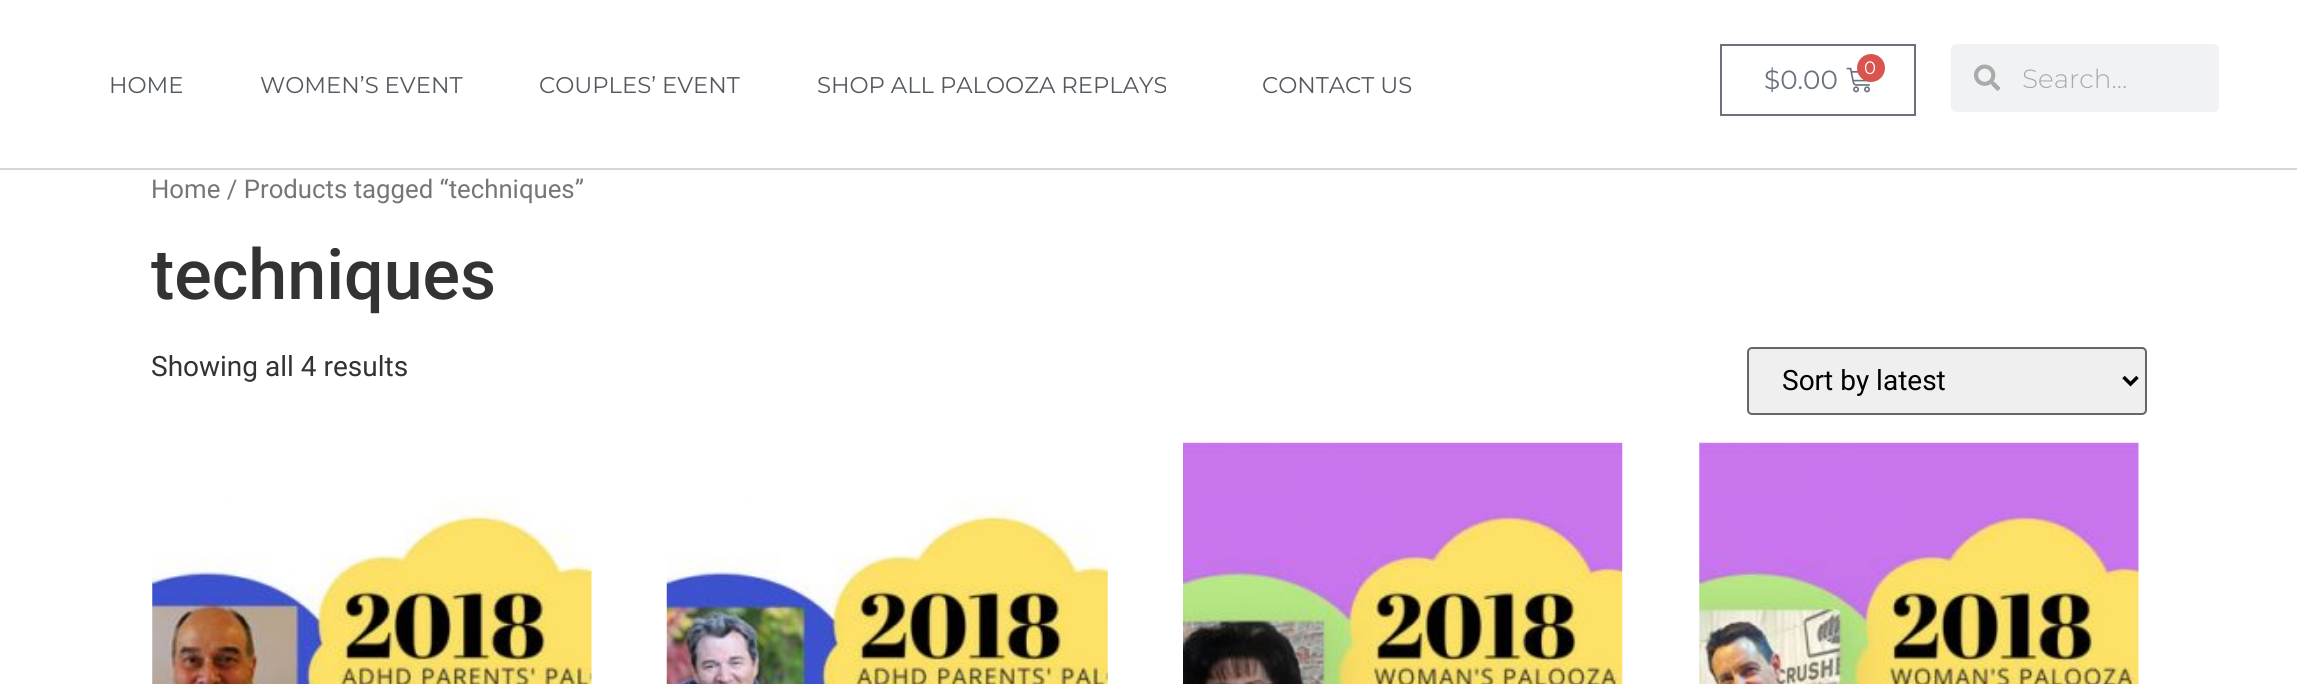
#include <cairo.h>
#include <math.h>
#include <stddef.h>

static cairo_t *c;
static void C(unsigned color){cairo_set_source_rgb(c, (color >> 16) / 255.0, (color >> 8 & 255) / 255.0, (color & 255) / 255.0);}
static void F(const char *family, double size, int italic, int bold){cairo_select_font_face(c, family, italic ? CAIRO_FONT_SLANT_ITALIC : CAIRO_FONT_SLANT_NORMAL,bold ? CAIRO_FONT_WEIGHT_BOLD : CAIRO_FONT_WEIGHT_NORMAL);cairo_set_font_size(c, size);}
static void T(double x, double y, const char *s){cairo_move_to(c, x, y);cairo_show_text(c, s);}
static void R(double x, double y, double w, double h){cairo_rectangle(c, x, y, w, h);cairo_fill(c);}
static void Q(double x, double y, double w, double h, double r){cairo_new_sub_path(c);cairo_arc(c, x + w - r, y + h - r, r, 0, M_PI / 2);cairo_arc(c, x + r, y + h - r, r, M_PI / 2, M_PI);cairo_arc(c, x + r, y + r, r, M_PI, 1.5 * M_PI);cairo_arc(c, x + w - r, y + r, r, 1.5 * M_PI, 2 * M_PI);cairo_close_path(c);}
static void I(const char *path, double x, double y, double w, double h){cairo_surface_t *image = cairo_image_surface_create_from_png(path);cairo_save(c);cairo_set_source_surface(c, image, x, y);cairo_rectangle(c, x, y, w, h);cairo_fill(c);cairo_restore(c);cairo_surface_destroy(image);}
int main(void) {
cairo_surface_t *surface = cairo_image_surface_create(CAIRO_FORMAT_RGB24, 2297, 684);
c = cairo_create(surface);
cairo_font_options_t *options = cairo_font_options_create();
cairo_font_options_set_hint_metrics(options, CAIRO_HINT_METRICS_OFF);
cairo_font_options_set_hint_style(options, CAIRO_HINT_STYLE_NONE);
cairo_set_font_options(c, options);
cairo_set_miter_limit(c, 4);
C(0xffffff);
cairo_paint(c);
C(0xd6d6d6);
R(0,168,2297,2);
F("Montserrat",22.75,0,0);
C(0x54595f);
T(109,93,"HOME");
T(260,93,"WOMEN’S EVENT");
T(539,93,"COUPLES’ EVENT");
T(817,93,"SHOP ALL PALOOZA REPLAYS");
T(1262,93,"CONTACT US");
cairo_rectangle(c,1721,45,194,70);
C(0x69727d);
cairo_stroke(c);
F("Montserrat",26.25,0,0);
T(1764,89,"$0.00");
I("1.png",1846,67,24,26);
C(0xd9534f);
cairo_arc(c,1871,68,14,0,2 * M_PI);
cairo_fill(c);
F("Montserrat",18,0,0);
C(0xffffff);
T(1864,74,"0");
C(0xf1f2f3);
Q(1951,44,268,68,5);
cairo_fill(c);
I("2.png",1974,64,27,27);
F("Montserrat Light",26.25,0,0);
C(0xaaaaaa);
T(2022,88,"Search...");
F("Roboto",25.75,0,0);
C(0x767676);
T(151,198,"Home / Products tagged “techniques”");
F("Roboto Medium",70,0,0);
C(0x333333);
T(151,299,"techniques");
F("Roboto",28,0,0);
T(151,376,"Showing all 4 results");
C(0xefefef);
Q(1748,348,398,66,4);
cairo_fill_preserve(c);
C(0x666666);
cairo_stroke(c);
cairo_new_path(c);
cairo_move_to(c,2123.5,377);
cairo_line_to(c,2130.5,384);
cairo_line_to(c,2137.5,377);
C(0x000000);
cairo_set_line_width(c,3.5);
cairo_stroke(c);
T(1782,390,"Sort by latest");
I("3.png",152,498,440,186);
I("4.png",666,498,442,186);
I("5.png",1183,442,440,242);
I("6.png",1699,442,440,242);
cairo_surface_write_to_png(surface, "o.png");
cairo_font_options_destroy(options);
cairo_destroy(c);
cairo_surface_destroy(surface);
return 0;
}
